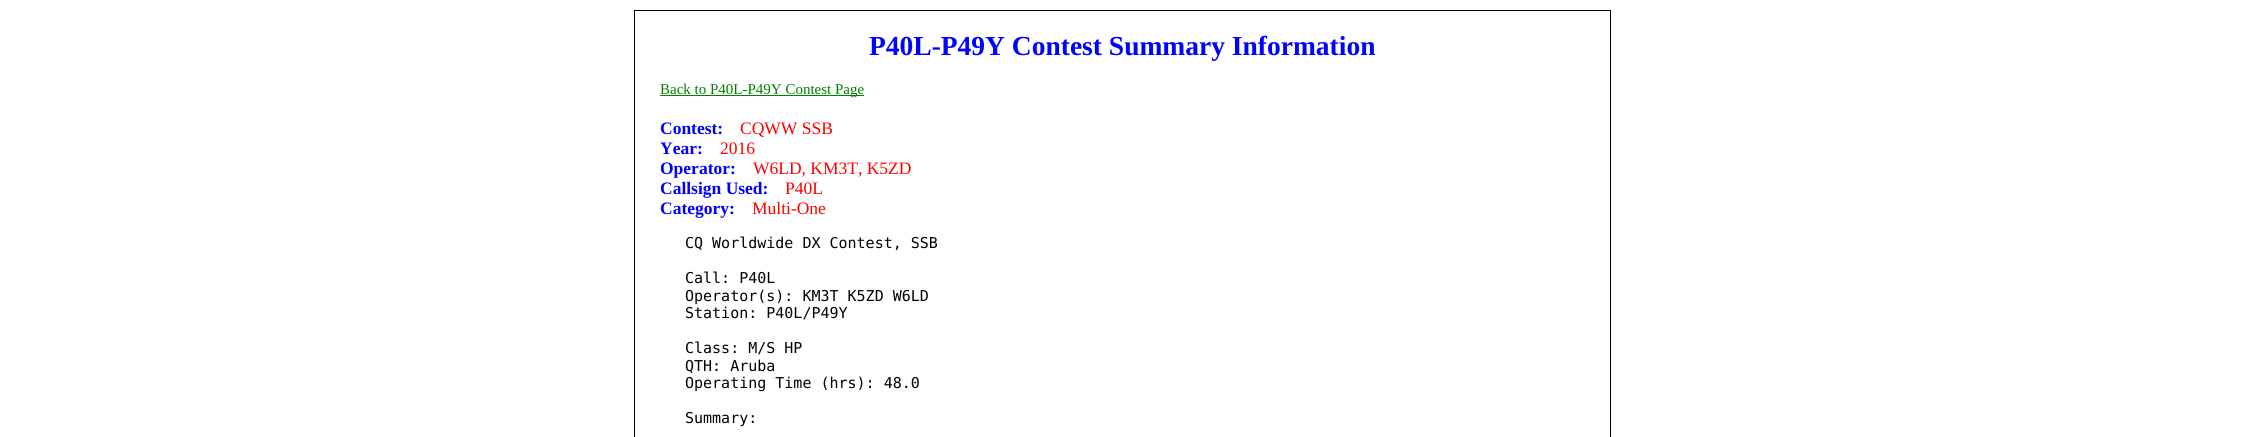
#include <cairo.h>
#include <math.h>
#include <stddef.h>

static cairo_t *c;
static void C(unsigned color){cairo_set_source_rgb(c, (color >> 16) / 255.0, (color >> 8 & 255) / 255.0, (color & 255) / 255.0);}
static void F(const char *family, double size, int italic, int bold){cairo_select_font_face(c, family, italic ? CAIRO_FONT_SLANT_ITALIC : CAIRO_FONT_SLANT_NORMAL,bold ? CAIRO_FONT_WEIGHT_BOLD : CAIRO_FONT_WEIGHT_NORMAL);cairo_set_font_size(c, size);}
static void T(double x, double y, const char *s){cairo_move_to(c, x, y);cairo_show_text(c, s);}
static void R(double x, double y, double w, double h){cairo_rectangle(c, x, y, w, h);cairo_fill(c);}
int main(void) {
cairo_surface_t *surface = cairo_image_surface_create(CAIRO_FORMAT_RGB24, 2245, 437);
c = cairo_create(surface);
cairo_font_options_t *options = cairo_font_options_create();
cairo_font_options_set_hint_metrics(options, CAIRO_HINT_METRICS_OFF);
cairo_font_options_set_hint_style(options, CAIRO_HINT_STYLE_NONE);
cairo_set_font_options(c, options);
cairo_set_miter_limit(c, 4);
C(0xffffff);
cairo_paint(c);
cairo_rectangle(c,634.5,10.5,976,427);
C(0x000000);
cairo_set_line_width(c,1);
cairo_stroke(c);
F("Liberation Serif",27.5,0,1);
C(0x0000ff);
T(869,55,"P40L-P49Y Contest Summary Information");
C(0x008000);
R(660,95,204,1);
F("Liberation Serif",15,0,0);
T(660,94,"Back to P40L-P49Y Contest Page");
F("Liberation Serif",17.5,0,1);
C(0x0000ff);
T(660,134,"Contest:");
F("Liberation Serif",17.5,0,0);
C(0xff0000);
T(740,134,"CQWW SSB");
F("Liberation Serif",17.5,0,1);
C(0x0000ff);
T(660,154,"Year:");
F("Liberation Serif",17.5,0,0);
C(0xff0000);
T(720,154,"2016");
F("Liberation Serif",17.5,0,1);
C(0x0000ff);
T(660,174,"Operator:");
F("Liberation Serif",17.5,0,0);
C(0xff0000);
T(753,174,"W6LD, KM3T, K5ZD");
F("Liberation Serif",17.5,0,1);
C(0x0000ff);
T(660,194,"Callsign Used:");
F("Liberation Serif",17.5,0,0);
C(0xff0000);
T(785,194,"P40L");
F("Liberation Serif",17.5,0,1);
C(0x0000ff);
T(660,214,"Category:");
F("Liberation Serif",17.5,0,0);
C(0xff0000);
T(752,214,"Multi-One");
F("DejaVu Sans Mono",15,0,0);
C(0x000000);
T(685,248,"CQ Worldwide DX Contest, SSB");
T(685,283,"Call: P40L");
T(685,301,"Operator(s): KM3T K5ZD W6LD");
T(685,318,"Station: P40L/P49Y");
T(685,353,"Class: M/S HP");
T(685,371,"QTH: Aruba");
T(685,388,"Operating Time (hrs): 48.0");
T(685,423,"Summary:");
cairo_surface_write_to_png(surface, "o.png");
cairo_font_options_destroy(options);
cairo_destroy(c);
cairo_surface_destroy(surface);
return 0;
}
